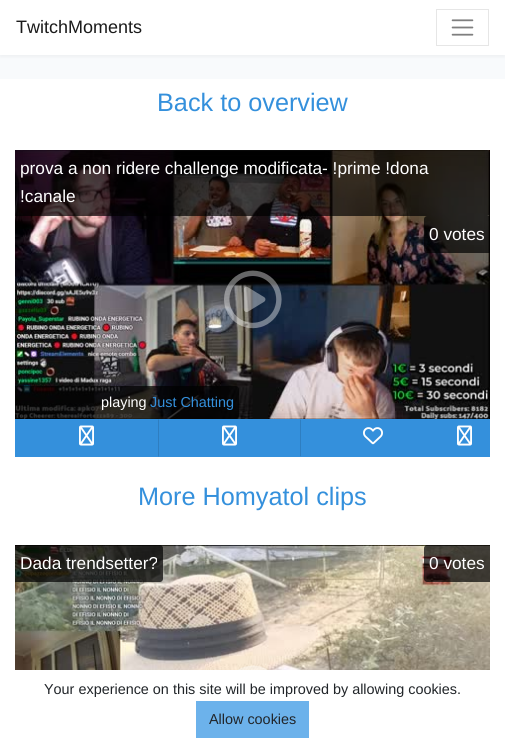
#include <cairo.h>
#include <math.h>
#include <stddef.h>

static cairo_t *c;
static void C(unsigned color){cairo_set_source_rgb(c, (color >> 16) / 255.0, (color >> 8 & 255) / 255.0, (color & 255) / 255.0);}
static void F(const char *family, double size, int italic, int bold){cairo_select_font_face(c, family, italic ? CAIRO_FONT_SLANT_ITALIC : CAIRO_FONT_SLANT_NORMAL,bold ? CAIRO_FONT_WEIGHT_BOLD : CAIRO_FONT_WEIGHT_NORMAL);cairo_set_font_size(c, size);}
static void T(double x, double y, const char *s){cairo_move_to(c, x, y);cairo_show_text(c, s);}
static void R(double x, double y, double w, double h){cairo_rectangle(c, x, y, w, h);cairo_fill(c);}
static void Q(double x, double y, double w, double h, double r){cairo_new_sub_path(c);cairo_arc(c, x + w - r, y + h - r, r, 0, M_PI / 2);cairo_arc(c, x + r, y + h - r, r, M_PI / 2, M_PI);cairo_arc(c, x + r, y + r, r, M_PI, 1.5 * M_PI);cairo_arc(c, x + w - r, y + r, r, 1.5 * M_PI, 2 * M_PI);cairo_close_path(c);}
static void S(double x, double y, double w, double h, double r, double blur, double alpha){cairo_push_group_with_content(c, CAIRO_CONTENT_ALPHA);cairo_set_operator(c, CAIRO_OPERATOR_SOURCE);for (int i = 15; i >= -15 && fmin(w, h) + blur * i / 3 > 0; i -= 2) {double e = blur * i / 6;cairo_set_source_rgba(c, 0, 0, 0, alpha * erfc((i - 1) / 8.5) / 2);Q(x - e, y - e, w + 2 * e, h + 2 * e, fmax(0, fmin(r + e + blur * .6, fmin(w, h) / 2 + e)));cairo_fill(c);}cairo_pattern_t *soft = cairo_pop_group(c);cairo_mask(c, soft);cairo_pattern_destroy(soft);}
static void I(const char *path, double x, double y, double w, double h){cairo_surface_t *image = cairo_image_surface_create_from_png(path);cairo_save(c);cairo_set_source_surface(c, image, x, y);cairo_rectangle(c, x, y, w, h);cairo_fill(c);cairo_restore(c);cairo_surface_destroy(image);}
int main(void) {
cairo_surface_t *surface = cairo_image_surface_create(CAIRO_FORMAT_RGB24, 505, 746);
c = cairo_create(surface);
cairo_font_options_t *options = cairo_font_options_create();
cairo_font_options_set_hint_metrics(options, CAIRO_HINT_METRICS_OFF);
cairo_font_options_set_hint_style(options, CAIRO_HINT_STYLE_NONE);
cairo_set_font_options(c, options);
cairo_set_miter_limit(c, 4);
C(0xf8fafc);
cairo_paint(c);
C(0x000000);
S(0,2,505,55,0,2,.04);
C(0xffffff);
R(0,0,505,55);
F("Liberation Sans",18,0,0);
C(0x1a1a1a);
T(16,33,"TwitchMoments");
cairo_rectangle(c,436.5,9.5,52,36);
C(0xe6e6e6);
cairo_set_line_width(c,1);
cairo_stroke(c);
I("1.png",451,19,23,17);
C(0xffffff);
R(0,79,505,667);
F("Liberation Sans",25.25,0,0);
C(0x3490dc);
T(157,111,"Back to overview");
I("2.png",15,150,475,269);
cairo_set_source_rgba(c,0,0,0,0.7);
cairo_new_path(c);
cairo_move_to(c,15,150);
cairo_line_to(c,487,150);
cairo_curve_to(c,488.5,150,490,151.5,490,153);
cairo_line_to(c,490,213);
cairo_curve_to(c,490,214.5,488.5,216,487,216);
cairo_line_to(c,15,216);
cairo_close_path(c);
cairo_fill(c);
F("Liberation Sans",17.25,0,0);
C(0xffffff);
T(20,174,"prova a non ridere challenge modificata- !prime !dona");
T(20,202,"!canale");
cairo_set_source_rgba(c,0,0,0,0.7);
cairo_new_path(c);
cairo_move_to(c,427,216);
cairo_line_to(c,490,216);
cairo_line_to(c,490,253);
cairo_line_to(c,427,253);
cairo_curve_to(c,425.5,253,424,251.5,424,250);
cairo_line_to(c,424,219);
cairo_curve_to(c,424,217.5,425.5,216,427,216);
cairo_close_path(c);
cairo_fill(c);
C(0xffffff);
T(429,240,"0 votes");
I("3.png",224,270,58,59);
cairo_set_source_rgba(c,0,0,0,0.7);
cairo_new_path(c);
cairo_move_to(c,15,386);
cairo_line_to(c,236,386);
cairo_curve_to(c,237.5,386,239,387.5,239,389);
cairo_line_to(c,239,416);
cairo_curve_to(c,239,417.5,237.5,419,236,419);
cairo_line_to(c,15,419);
cairo_close_path(c);
cairo_fill(c);
F("Liberation Sans",14.4,0,0);
C(0xffffff);
T(101,407,"playing");
C(0x3490dc);
T(150,407,"Just Chatting");
R(15,419,475,38);
I("4.png",79,425,15,21);
C(0x2e7ec1);
cairo_new_path(c);
cairo_move_to(c,301,419);
cairo_line_to(c,301,457);
cairo_line_to(c,300,456);
cairo_line_to(c,300,420);
cairo_close_path(c);
cairo_fill(c);
C(0x3490dc);
cairo_new_path(c);
cairo_move_to(c,301,457);
cairo_line_to(c,158,457);
cairo_line_to(c,159,456);
cairo_line_to(c,300,456);
cairo_close_path(c);
cairo_fill(c);
C(0x2e7ec1);
cairo_new_path(c);
cairo_move_to(c,158,457);
cairo_line_to(c,158,419);
cairo_line_to(c,159,420);
cairo_line_to(c,159,456);
cairo_close_path(c);
cairo_fill(c);
I("4.png",222,425,15,21);
I("5.png",363,427,20,18);
I("4.png",457,425,15,21);
F("Liberation Sans",25.25,0,0);
C(0x3490dc);
T(138,505,"More Homyatol clips");
I("6.png",15,545,475,125);
cairo_set_source_rgba(c,0,0,0,0.7);
cairo_new_path(c);
cairo_move_to(c,15,545);
cairo_line_to(c,160,545);
cairo_curve_to(c,161.5,545,163,546.5,163,548);
cairo_line_to(c,163,579);
cairo_curve_to(c,163,580.5,161.5,582,160,582);
cairo_line_to(c,15,582);
cairo_close_path(c);
cairo_fill(c);
F("Liberation Sans",17.25,0,0);
C(0xffffff);
T(20,569,"Dada trendsetter?");
cairo_set_source_rgba(c,0,0,0,0.7);
cairo_new_path(c);
cairo_move_to(c,427,545);
cairo_line_to(c,490,545);
cairo_line_to(c,490,582);
cairo_line_to(c,427,582);
cairo_curve_to(c,425.5,582,424,580.5,424,579);
cairo_line_to(c,424,548);
cairo_curve_to(c,424,546.5,425.5,545,427,545);
cairo_close_path(c);
cairo_fill(c);
C(0xffffff);
T(429,569,"0 votes");
I("7.png",237,665,31,5);
F("Liberation Sans",14.4,0,0);
C(0x212529);
T(44,694,"Your experience on this site will be improved by allowing cookies.");
C(0x6cb2eb);
R(196,701,113,37);
C(0x212529);
T(209,724,"Allow cookies");
cairo_surface_write_to_png(surface, "o.png");
cairo_font_options_destroy(options);
cairo_destroy(c);
cairo_surface_destroy(surface);
return 0;
}
